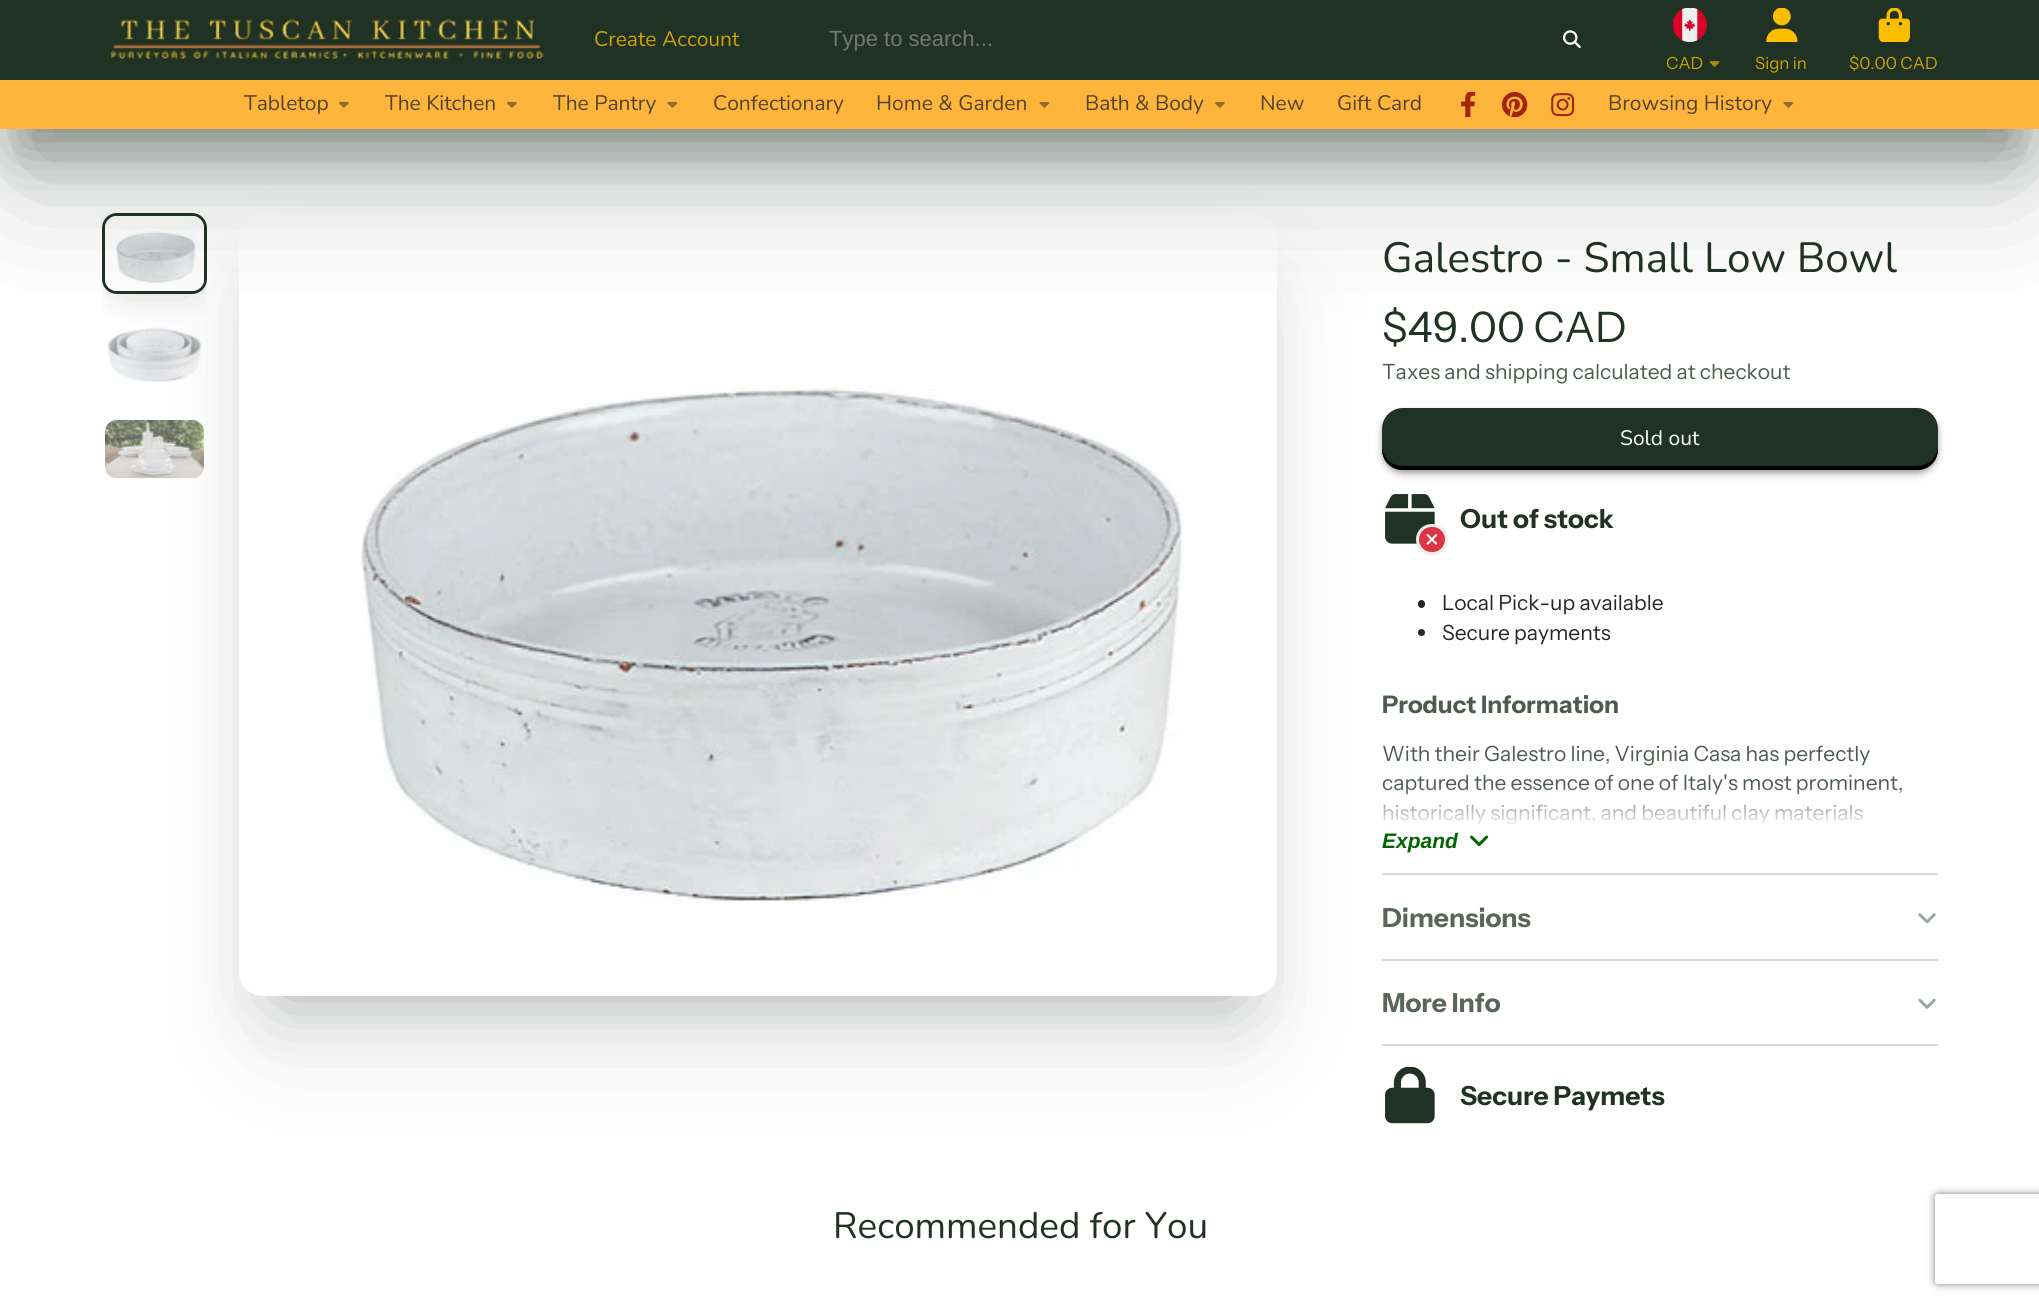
#include <cairo.h>
#include <math.h>
#include <stddef.h>

static cairo_t *c;
static void C(unsigned color){cairo_set_source_rgb(c, (color >> 16) / 255.0, (color >> 8 & 255) / 255.0, (color & 255) / 255.0);}
static void F(const char *family, double size, int italic, int bold){cairo_select_font_face(c, family, italic ? CAIRO_FONT_SLANT_ITALIC : CAIRO_FONT_SLANT_NORMAL,bold ? CAIRO_FONT_WEIGHT_BOLD : CAIRO_FONT_WEIGHT_NORMAL);cairo_set_font_size(c, size);}
static void T(double x, double y, const char *s){cairo_move_to(c, x, y);cairo_show_text(c, s);}
static void R(double x, double y, double w, double h){cairo_rectangle(c, x, y, w, h);cairo_fill(c);}
static void Q(double x, double y, double w, double h, double r){cairo_new_sub_path(c);cairo_arc(c, x + w - r, y + h - r, r, 0, M_PI / 2);cairo_arc(c, x + r, y + h - r, r, M_PI / 2, M_PI);cairo_arc(c, x + r, y + r, r, M_PI, 1.5 * M_PI);cairo_arc(c, x + w - r, y + r, r, 1.5 * M_PI, 2 * M_PI);cairo_close_path(c);}
static void S(double x, double y, double w, double h, double r, double blur, double alpha){cairo_push_group_with_content(c, CAIRO_CONTENT_ALPHA);cairo_set_operator(c, CAIRO_OPERATOR_SOURCE);for (int i = 15; i >= -15 && fmin(w, h) + blur * i / 3 > 0; i -= 2) {double e = blur * i / 6;cairo_set_source_rgba(c, 0, 0, 0, alpha * erfc((i - 1) / 8.5) / 2);Q(x - e, y - e, w + 2 * e, h + 2 * e, fmax(0, fmin(r + e + blur * .6, fmin(w, h) / 2 + e)));cairo_fill(c);}cairo_pattern_t *soft = cairo_pop_group(c);cairo_mask(c, soft);cairo_pattern_destroy(soft);}
static void I(const char *path, double x, double y, double w, double h){cairo_surface_t *image = cairo_image_surface_create_from_png(path);cairo_save(c);cairo_set_source_surface(c, image, x, y);cairo_rectangle(c, x, y, w, h);cairo_fill(c);cairo_restore(c);cairo_surface_destroy(image);}
int main(void) {
cairo_surface_t *surface = cairo_image_surface_create(CAIRO_FORMAT_RGB24, 2039, 1304);
c = cairo_create(surface);
cairo_font_options_t *options = cairo_font_options_create();
cairo_font_options_set_hint_metrics(options, CAIRO_HINT_METRICS_OFF);
cairo_font_options_set_hint_style(options, CAIRO_HINT_STYLE_NONE);
cairo_set_font_options(c, options);
cairo_set_miter_limit(c, 4);
cairo_pattern_t *gradient;
C(0xffffff);
cairo_paint(c);
cairo_save(c);
cairo_rectangle(c,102,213,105,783);
cairo_clip(c);
C(0x162218);
S(123,245,63,39,0,21,.3);
cairo_restore(c);
Q(103.5,214.5,102,78,13.5);
C(0x203223);
cairo_set_line_width(c,3);
cairo_stroke(c);
I("13.png",105,216,99,75);
I("14.png",107,327,95,55);
I("15.png",105,420,99,59);
C(0x162218);
S(278,293,960,703,0,39.5,.3);
S(266,305,985,730,0,65.5,.1);
C(0xffffff);
Q(239,213,1038,783,24);
cairo_fill(c);
C(0x162218);
S(21,60,1998,87,0,29,.4);
S(21,87,1998,87,0,65.5,.3);
C(0x203223);
R(0,0,2039,80);
I("1.png",110,19,434,41);
F("Nunito",21,0,0);
C(0xcfa107);
T(594,46,"Create Account");
F("Liberation Sans",22,0,0);
C(0x757575);
T(829,46,"Type to search...");
I("2.png",1563,30,18,18);
I("3.png",1673,8,34,34);
F("Instrument Sans",16.75,0,0);
C(0xcfa107);
T(1666,69,"CAD");
I("4.png",1709,61,11,6);
I("5.png",1766,8,32,34);
T(1755,69,"Sign in");
I("6.png",1878,8,32,34);
T(1849,69,"$0.00 CAD");
C(0xffb53c);
R(0,80,2039,49);
F("Nunito",21,0,0);
C(0x53432b);
T(244,110,"Tabletop");
I("7.png",339,101,10,7);
T(385,110,"The Kitchen");
I("7.png",507,101,10,7);
T(553,110,"The Pantry");
I("8.png",667,101,11,7);
T(713,110,"Confectionary");
T(876,110,"Home & Garden");
I("8.png",1039,101,11,7);
T(1085,110,"Bath & Body");
I("7.png",1215,101,10,7);
T(1260,110,"New");
T(1337,110,"Gift Card");
I("9.png",1461,92,15,25);
I("10.png",1502,92,26,25);
I("11.png",1551,93,24,24);
T(1608,110,"Browsing History");
I("8.png",1783,101,11,7);
I("12.png",361,385,823,518);
F("Nunito",42.25,0,0);
C(0x203223);
T(1382,272,"Galestro - Small Low Bowl");
F("Instrument Sans",42,0,0);
T(1382,342,"$49.00 CAD");
F("Instrument Sans",21,0,0);
C(0x4d5b4f);
T(1382,379,"Taxes and shipping calculated at checkout");
C(0x000000);
S(1385,417,550,56,18,6.5,.15);
S(1382,411,556,62,21,3,.3);
C(0x203223);
Q(1382,408,556,62,21);
cairo_fill(c);
C(0x000000);
cairo_new_path(c);
cairo_move_to(c,1382,445);
cairo_line_to(c,1382,449);
cairo_curve_to(c,1382,461,1391,470,1403,470);
cairo_line_to(c,1917,470);
cairo_curve_to(c,1929,470,1938,461,1938,449);
cairo_line_to(c,1938,445);
cairo_curve_to(c,1938,457,1929,466,1917,466);
cairo_line_to(c,1402,466);
cairo_curve_to(c,1391,466,1382,457,1382,445);
cairo_close_path(c);
cairo_fill(c);
F("Nunito",21,0,0);
C(0xffffff);
T(1620,445,"Sold out");
I("16.png",1385,494,50,50);
C(0xdc3545);
Q(1417.5,525.5,29,28,14);
cairo_fill_preserve(c);
C(0xededed);
cairo_stroke(c);
I("17.png",1426,534,12,11);
F("Instrument Sans",26.25,0,1);
C(0x203223);
T(1460,528,"Out of stock");
C(0x262626);
Q(1418,600,7,8,3.5);
cairo_fill(c);
F("Instrument Sans",21,0,0);
T(1442,610,"Local Pick-up available");
cairo_new_path(c);
cairo_arc(c,1421.5,632.5,3.5,0,2 * M_PI);
cairo_fill(c);
T(1442,640,"Secure payments");
F("Instrument Sans",24.25,0,1);
C(0x4d5b4f);
T(1382,713,"Product Information");
F("Instrument Sans",21,0,0);
T(1382,761,"With their Galestro line, Virginia Casa has perfectly");
T(1382,790,"captured the essence of one of Italy's most prominent,");
T(1382,820,"historically significant, and beautiful clay materials");
gradient = cairo_pattern_create_linear(1660,852,1660,786);
cairo_pattern_add_color_stop_rgba(gradient,.35,1,1,1,1);
cairo_pattern_add_color_stop_rgba(gradient,1,1,1,1,0);
cairo_set_source(c,gradient);
cairo_pattern_destroy(gradient);
R(1383,787,519,38);
F("Liberation Sans",21,1,1);
C(0x006400);
T(1382,848,"Expand");
I("18.png",1470,835,19,12);
C(0xd9d9d9);
R(1382,873,556,2);
R(1382,959,556,2);
F("Instrument Sans",26.25,0,1);
C(0x58655a);
T(1382,927,"Dimensions");
I("19.png",1918,913,18,11);
C(0xd9d9d9);
R(1382,1044,556,2);
C(0x58655a);
T(1382,1012,"More Info");
I("20.png",1918,998,18,11);
I("21.png",1385,1067,50,57);
C(0x203223);
T(1460,1105,"Secure Paymets");
F("Nunito",36.75,0,0);
T(833,1238,"Recommended for You");
cairo_save(c);
cairo_set_fill_rule(c,CAIRO_FILL_RULE_EVEN_ODD);
cairo_new_path(c);
cairo_move_to(c,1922,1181);
cairo_line_to(c,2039,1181);
cairo_line_to(c,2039,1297);
cairo_line_to(c,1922,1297);
cairo_close_path(c);
cairo_move_to(c,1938,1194);
cairo_line_to(c,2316,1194);
cairo_curve_to(c,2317.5,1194,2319,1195.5,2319,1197);
cairo_line_to(c,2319,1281);
cairo_curve_to(c,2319,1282.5,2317.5,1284,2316,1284);
cairo_line_to(c,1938,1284);
cairo_curve_to(c,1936.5,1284,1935,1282.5,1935,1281);
cairo_line_to(c,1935,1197);
cairo_curve_to(c,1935,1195.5,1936.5,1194,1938,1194);
cairo_close_path(c);
cairo_clip(c);
C(0x808080);
S(1935,1194,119,90,3,4,1);
cairo_restore(c);
cairo_surface_write_to_png(surface, "o.png");
cairo_font_options_destroy(options);
cairo_destroy(c);
cairo_surface_destroy(surface);
return 0;
}
